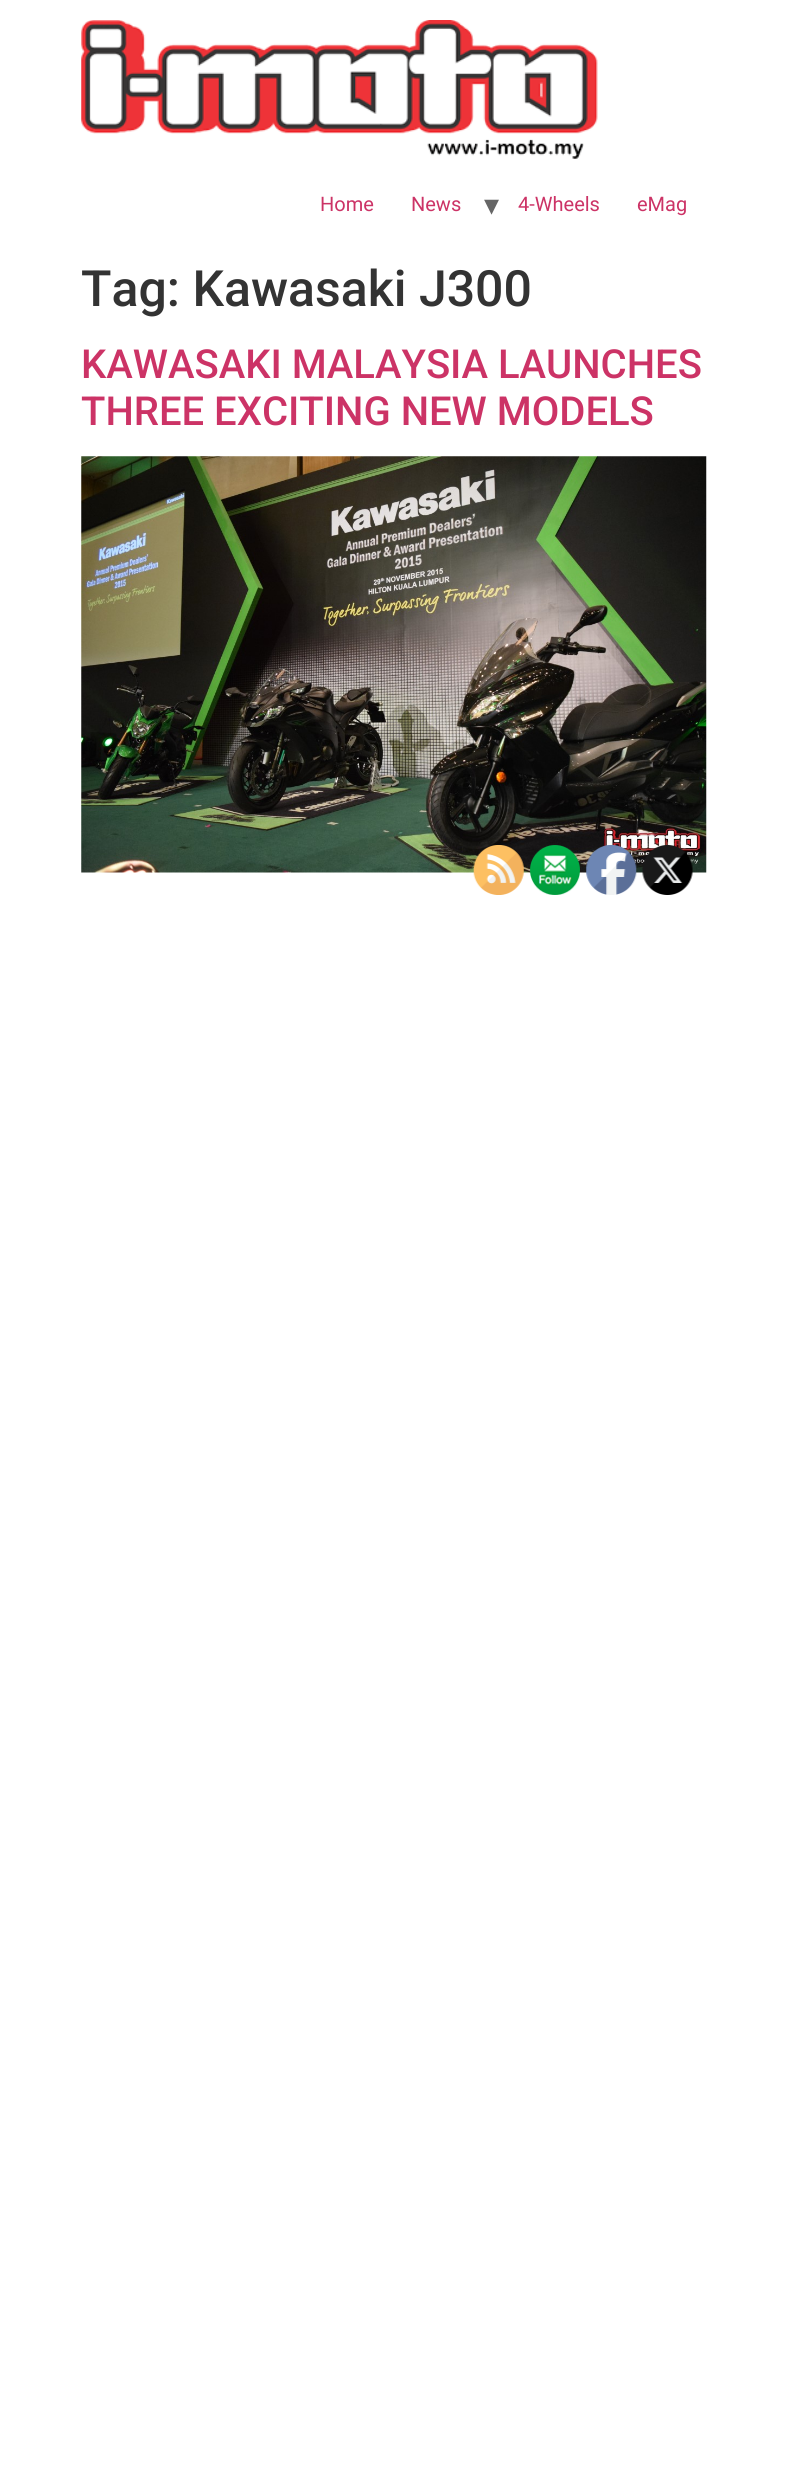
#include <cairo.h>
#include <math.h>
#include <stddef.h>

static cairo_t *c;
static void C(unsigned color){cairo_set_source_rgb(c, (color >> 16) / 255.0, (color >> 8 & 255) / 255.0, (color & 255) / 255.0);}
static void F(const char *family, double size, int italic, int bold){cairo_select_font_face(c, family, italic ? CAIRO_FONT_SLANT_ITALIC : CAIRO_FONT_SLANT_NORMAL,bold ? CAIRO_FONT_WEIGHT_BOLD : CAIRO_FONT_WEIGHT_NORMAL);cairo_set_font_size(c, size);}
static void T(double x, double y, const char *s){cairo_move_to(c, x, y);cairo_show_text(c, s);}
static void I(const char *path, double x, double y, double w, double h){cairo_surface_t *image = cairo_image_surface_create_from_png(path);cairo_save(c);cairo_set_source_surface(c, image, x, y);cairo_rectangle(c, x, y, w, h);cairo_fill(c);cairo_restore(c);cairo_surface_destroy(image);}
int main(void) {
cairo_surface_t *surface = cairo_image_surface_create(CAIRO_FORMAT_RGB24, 787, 2468);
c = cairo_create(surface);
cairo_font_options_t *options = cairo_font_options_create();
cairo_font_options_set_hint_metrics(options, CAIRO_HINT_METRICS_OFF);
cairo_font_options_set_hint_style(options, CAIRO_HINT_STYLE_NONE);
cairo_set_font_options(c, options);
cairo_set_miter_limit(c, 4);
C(0xffffff);
cairo_paint(c);
I("1.png",81,20,517,139);
F("Roboto",20,0,0);
C(0xcc3366);
T(320,211,"Home");
T(411,211,"News");
F("DejaVu Sans",30,0,0);
C(0x666666);
T(484,215,"▾");
F("Roboto",20,0,0);
C(0xcc3366);
T(518,211,"4-Wheels");
T(637,211,"eMag");
F("Roboto Medium",50,0,0);
C(0x333333);
T(81,306,"Tag: Kawasaki J300");
F("Roboto Medium",40,0,0);
C(0xcc3366);
T(81,378,"KAWASAKI MALAYSIA LAUNCHES");
T(81,425,"THREE EXCITING NEW MODELS");
I("2.png",81,456,626,417);
I("3.png",473,845,51,50);
I("4.png",530,845,50,50);
I("5.png",586,845,51,50);
I("6.png",642,845,51,50);
cairo_surface_write_to_png(surface, "o.png");
cairo_font_options_destroy(options);
cairo_destroy(c);
cairo_surface_destroy(surface);
return 0;
}
